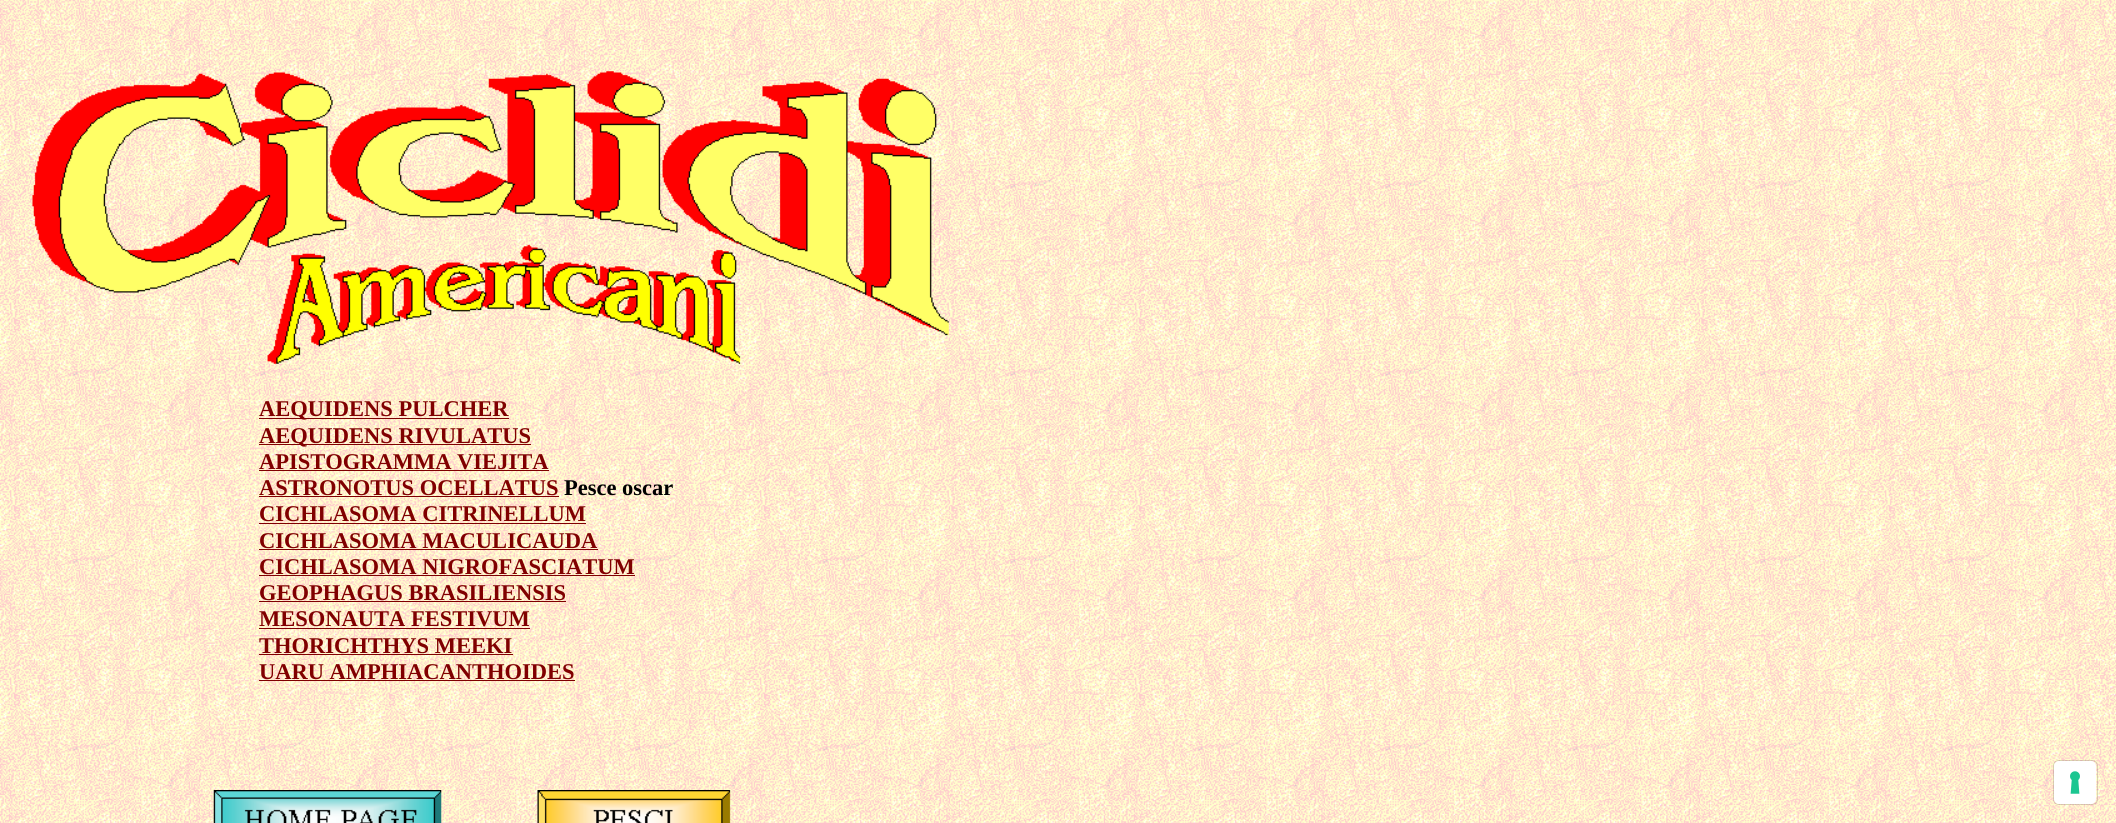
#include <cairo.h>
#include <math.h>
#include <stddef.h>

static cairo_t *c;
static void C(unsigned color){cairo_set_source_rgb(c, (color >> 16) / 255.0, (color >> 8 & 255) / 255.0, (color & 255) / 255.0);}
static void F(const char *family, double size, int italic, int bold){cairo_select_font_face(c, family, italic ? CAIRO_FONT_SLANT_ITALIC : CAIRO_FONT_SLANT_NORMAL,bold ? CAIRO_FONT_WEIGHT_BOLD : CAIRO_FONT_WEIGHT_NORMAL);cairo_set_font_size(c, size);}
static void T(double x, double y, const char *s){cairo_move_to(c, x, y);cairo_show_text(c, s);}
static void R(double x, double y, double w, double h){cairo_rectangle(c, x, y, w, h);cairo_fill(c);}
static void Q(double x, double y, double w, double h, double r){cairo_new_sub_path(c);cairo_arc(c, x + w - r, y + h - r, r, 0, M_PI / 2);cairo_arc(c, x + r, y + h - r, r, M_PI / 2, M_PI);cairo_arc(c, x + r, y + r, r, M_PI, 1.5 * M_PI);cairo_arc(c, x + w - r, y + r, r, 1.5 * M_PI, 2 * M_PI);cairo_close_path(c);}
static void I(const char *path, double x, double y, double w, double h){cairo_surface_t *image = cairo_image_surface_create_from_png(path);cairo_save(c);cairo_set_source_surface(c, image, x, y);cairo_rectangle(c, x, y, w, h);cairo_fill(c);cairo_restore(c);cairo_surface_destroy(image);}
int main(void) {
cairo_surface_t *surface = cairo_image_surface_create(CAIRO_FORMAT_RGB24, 2116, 823);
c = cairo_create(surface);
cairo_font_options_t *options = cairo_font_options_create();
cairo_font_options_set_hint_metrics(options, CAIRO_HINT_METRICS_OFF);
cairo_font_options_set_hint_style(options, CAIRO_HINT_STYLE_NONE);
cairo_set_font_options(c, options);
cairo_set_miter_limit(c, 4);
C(0xffffff);
cairo_paint(c);
I("1.png",0,0,2116,823);
I("2.png",32,71,917,293);
C(0x800000);
R(259,418,250,1);
F("Liberation Serif",22.5,0,1);
T(259,416,"AEQUIDENS PULCHER");
R(259,444,272,1);
T(259,443,"AEQUIDENS RIVULATUS");
T(259,469,"APISTOGRAMMA VIEJITA");
R(259,470,290,1);
T(259,495,"ASTRONOTUS OCELLATUS");
R(259,496,300,1);
C(0x000000);
T(564,495,"Pesce oscar");
C(0x800000);
T(259,521,"CICHLASOMA CITRINELLUM");
R(259,523,327,1);
T(259,548,"CICHLASOMA MACULICAUDA");
R(259,549,339,1);
T(259,574,"CICHLASOMA NIGROFASCIATUM");
R(259,575,376,1);
T(259,600,"GEOPHAGUS BRASILIENSIS");
R(259,601,307,1);
T(259,626,"MESONAUTA FESTIVUM");
R(259,628,271,1);
T(259,653,"THORICHTHYS MEEKI");
R(259,654,254,1);
T(259,679,"UARU AMPHIACANTHOIDES");
R(259,680,316,1);
I("3.png",213,790,229,33);
I("4.png",537,790,194,33);
Q(2053.5,760.5,44,44,5.5);
cairo_set_source_rgba(c,0,0,0,0.15);
cairo_set_line_width(c,1);
cairo_stroke(c);
C(0xffffff);
Q(2054,761,42,43,5);
cairo_fill(c);
I("5.png",2070,771,10,23);
cairo_surface_write_to_png(surface, "o.png");
cairo_font_options_destroy(options);
cairo_destroy(c);
cairo_surface_destroy(surface);
return 0;
}
